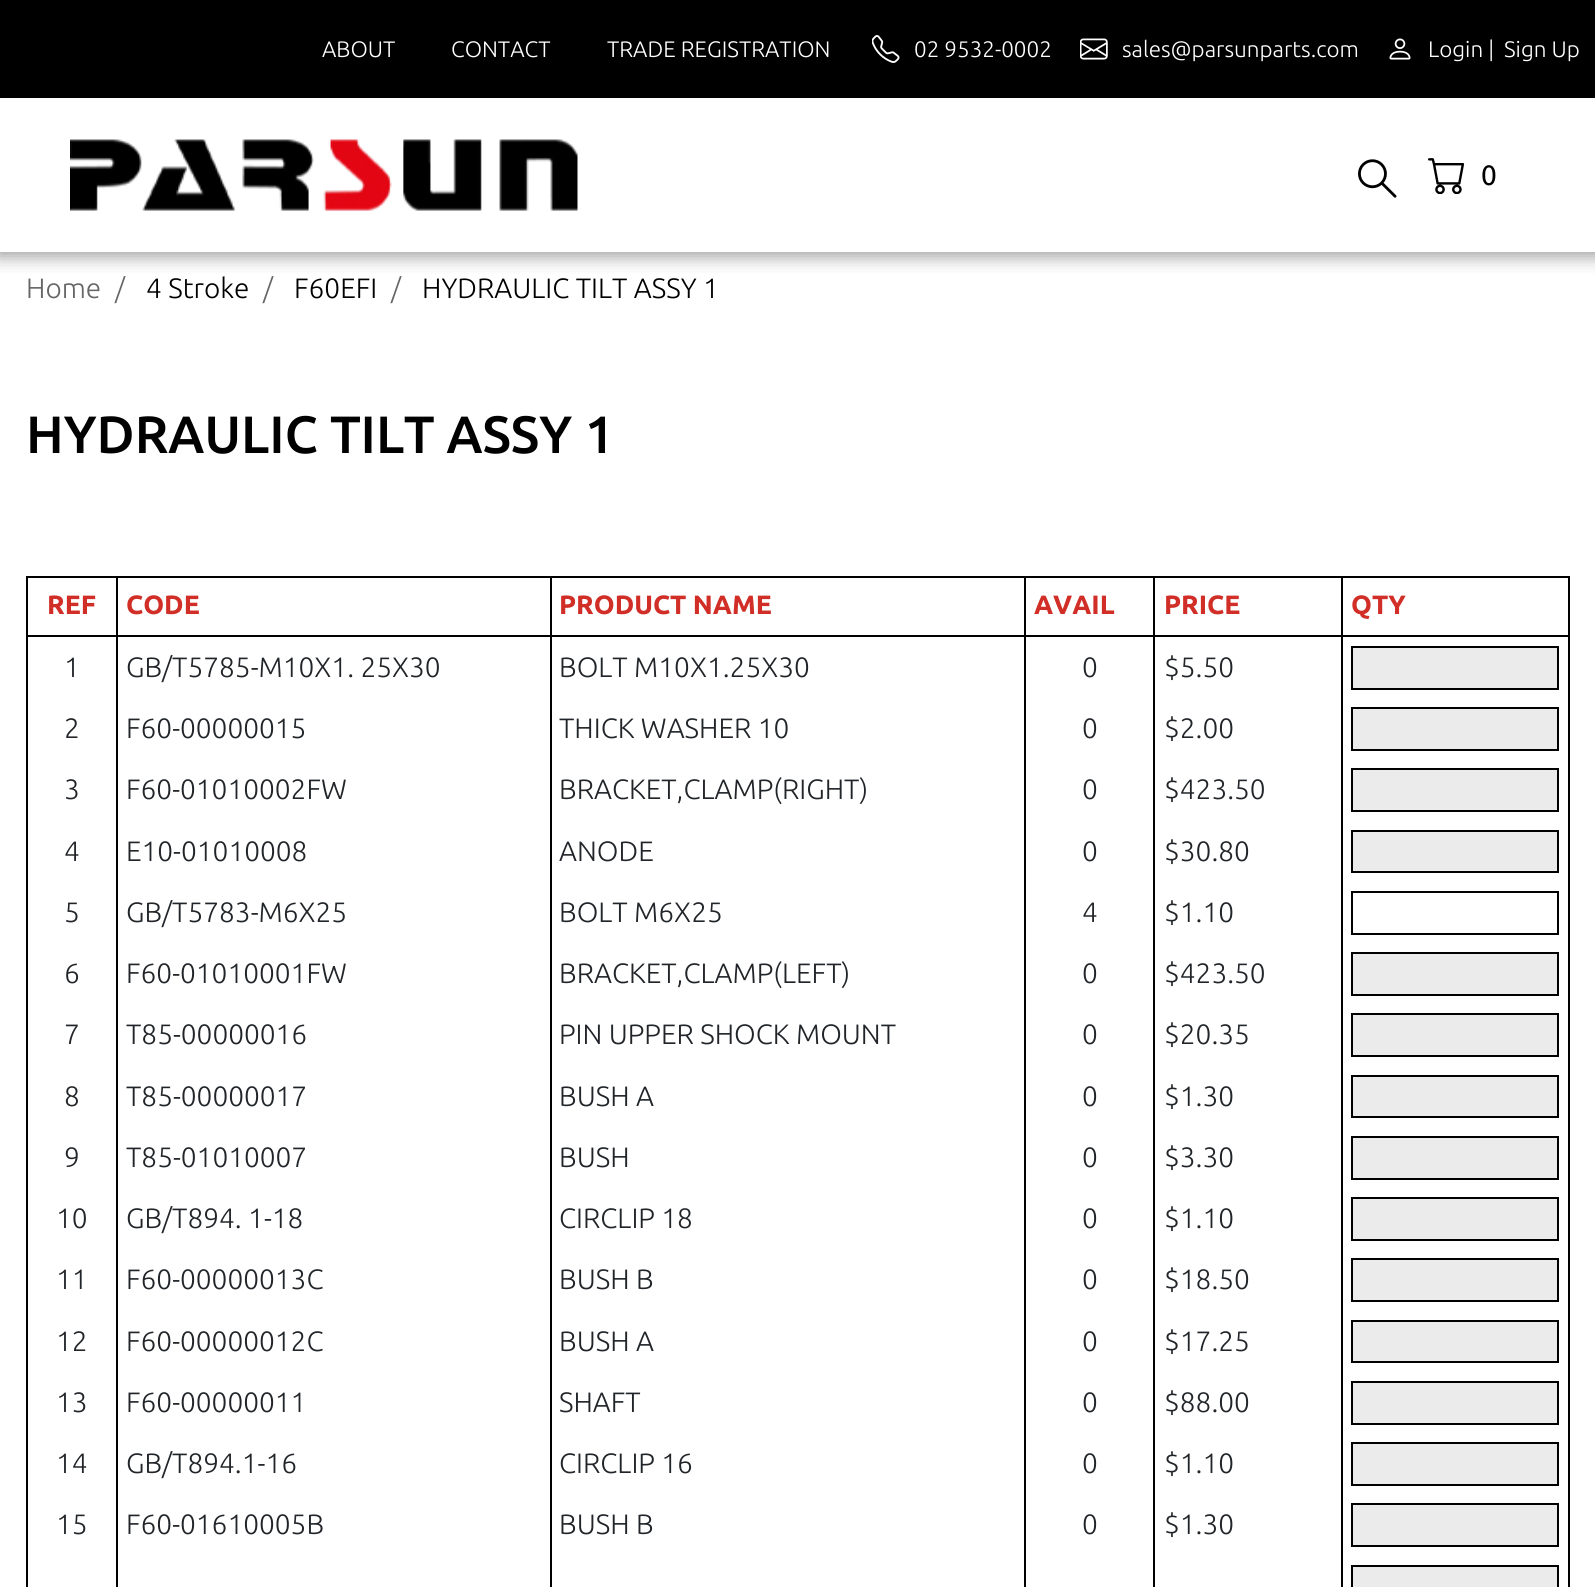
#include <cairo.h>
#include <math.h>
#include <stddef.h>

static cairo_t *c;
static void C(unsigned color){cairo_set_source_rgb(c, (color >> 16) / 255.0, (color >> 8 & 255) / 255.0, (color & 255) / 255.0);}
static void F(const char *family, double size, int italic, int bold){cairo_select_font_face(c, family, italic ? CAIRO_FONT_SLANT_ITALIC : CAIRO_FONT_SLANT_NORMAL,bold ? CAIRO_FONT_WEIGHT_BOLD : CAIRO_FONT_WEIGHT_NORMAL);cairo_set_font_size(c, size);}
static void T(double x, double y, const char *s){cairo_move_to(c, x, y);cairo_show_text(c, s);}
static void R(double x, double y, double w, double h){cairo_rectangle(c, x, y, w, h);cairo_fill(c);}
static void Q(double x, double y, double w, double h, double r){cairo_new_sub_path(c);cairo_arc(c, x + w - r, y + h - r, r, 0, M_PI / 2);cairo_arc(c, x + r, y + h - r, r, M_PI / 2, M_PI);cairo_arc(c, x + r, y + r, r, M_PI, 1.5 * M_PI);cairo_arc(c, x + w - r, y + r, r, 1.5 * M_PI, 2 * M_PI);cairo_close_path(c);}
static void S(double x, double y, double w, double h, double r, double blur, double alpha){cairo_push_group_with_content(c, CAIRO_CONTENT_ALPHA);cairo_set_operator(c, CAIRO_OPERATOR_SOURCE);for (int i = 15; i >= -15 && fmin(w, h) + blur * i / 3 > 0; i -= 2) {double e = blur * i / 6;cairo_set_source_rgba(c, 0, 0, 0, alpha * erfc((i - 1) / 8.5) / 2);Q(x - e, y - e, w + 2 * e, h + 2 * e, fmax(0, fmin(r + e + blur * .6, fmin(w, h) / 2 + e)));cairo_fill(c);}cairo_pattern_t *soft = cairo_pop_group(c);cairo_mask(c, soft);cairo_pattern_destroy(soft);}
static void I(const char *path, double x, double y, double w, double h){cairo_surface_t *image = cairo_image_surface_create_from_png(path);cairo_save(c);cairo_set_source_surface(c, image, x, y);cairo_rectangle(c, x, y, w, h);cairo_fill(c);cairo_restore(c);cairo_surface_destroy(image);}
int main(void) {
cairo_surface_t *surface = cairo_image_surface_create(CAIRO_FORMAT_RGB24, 1595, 1587);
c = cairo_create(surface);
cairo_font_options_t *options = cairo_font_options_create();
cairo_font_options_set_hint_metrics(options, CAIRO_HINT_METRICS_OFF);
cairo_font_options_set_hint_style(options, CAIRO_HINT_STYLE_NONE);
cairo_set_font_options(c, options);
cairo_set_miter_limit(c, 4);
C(0xffffff);
cairo_paint(c);
cairo_save(c);
cairo_rectangle(c,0,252,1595,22);
cairo_clip(c);
C(0x999999);
S(-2,0,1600,256,0,9,1);
cairo_restore(c);
C(0x000000);
R(0,0,1595,98);
F("Ubuntu Light",22.4,0,0);
C(0xffffff);
T(322,57,"ABOUT");
T(451,57,"CONTACT");
T(607,57,"TRADE REGISTRATION");
I("1.png",872,35,28,28);
T(914,57,"02 9532-0002");
I("2.png",1080,38,28,22);
T(1122,57,"sales@parsunparts.com");
I("3.png",1389,38,22,22);
T(1428,57,"Login |");
T(1504,57,"Sign Up");
I("4.png",70,139,508,72);
I("5.png",1358,159,39,39);
I("6.png",1428,158,37,36);
F("Ubuntu",28,0,0);
C(0x000000);
T(1481,185,"0");
F("Ubuntu Light",28,0,0);
C(0x666666);
T(26,298,"Home");
T(115,298,"/");
C(0x000000);
T(146,298,"4 Stroke");
C(0x666666);
T(263,298,"/");
C(0x000000);
T(294,298,"F60EFI");
C(0x666666);
T(391,298,"/");
C(0x000000);
T(422,298,"HYDRAULIC TILT ASSY 1");
F("Ubuntu Medium",52.5,0,0);
T(26,453,"HYDRAULIC TILT ASSY 1");
R(26,576,1544,2);
R(1568,576,2,1011);
R(26,576,2,1011);
R(1341,635,2,952);
R(1341,635,229,2);
R(1341,576,2,61);
R(1153,635,2,952);
R(1153,635,189,2);
R(1153,576,2,61);
R(1024,635,2,952);
R(1024,635,131,2);
R(1024,576,2,61);
R(550,635,2,952);
R(550,635,476,2);
R(550,576,2,61);
R(116,635,2,952);
R(116,635,435,2);
R(116,576,2,61);
R(26,635,91,2);
F("Ubuntu",26.5,0,1);
C(0xd02e26);
T(47,614,"REF");
T(126,614,"CODE");
T(559,614,"PRODUCT NAME");
T(1034,614,"AVAIL");
T(1164,614,"PRICE");
T(1351,614,"QTY");
C(0xebebeb);
cairo_rectangle(c,1352,1566,206,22);
cairo_fill_preserve(c);
C(0x000000);
cairo_stroke(c);
F("Ubuntu Light",28,0,0);
C(0x212529);
T(64,677,"1");
T(126,677,"GB/T5785-M10X1. 25X30");
T(559,677,"BOLT M10X1.25X30");
T(1082,677,"0");
T(1164,677,"$5.50");
C(0xebebeb);
cairo_rectangle(c,1352,647,206,42);
cairo_fill_preserve(c);
C(0x000000);
cairo_stroke(c);
C(0x212529);
T(64,738,"2");
T(126,738,"F60-00000015");
T(559,738,"THICK WASHER 10");
T(1082,738,"0");
T(1164,738,"$2.00");
C(0xebebeb);
cairo_rectangle(c,1352,708,206,42);
cairo_fill_preserve(c);
C(0x000000);
cairo_stroke(c);
C(0x212529);
T(64,799,"3");
T(126,799,"F60-01010002FW");
T(559,799,"BRACKET,CLAMP(RIGHT)");
T(1082,799,"0");
T(1164,799,"$423.50");
C(0xebebeb);
cairo_rectangle(c,1352,769,206,42);
cairo_fill_preserve(c);
C(0x000000);
cairo_stroke(c);
C(0x212529);
T(64,861,"4");
T(126,861,"E10-01010008");
T(559,861,"ANODE");
T(1082,861,"0");
T(1164,861,"$30.80");
C(0xebebeb);
cairo_rectangle(c,1352,831,206,41);
cairo_fill_preserve(c);
C(0x000000);
cairo_stroke(c);
C(0x212529);
T(64,922,"5");
T(126,922,"GB/T5783-M6X25");
T(559,922,"BOLT M6X25");
T(1082,922,"4");
T(1164,922,"$1.10");
cairo_rectangle(c,1352,892,206,42);
C(0x000000);
cairo_stroke(c);
C(0x212529);
T(64,983,"6");
T(126,983,"F60-01010001FW");
T(559,983,"BRACKET,CLAMP(LEFT)");
T(1082,983,"0");
T(1164,983,"$423.50");
C(0xebebeb);
cairo_rectangle(c,1352,953,206,42);
cairo_fill_preserve(c);
C(0x000000);
cairo_stroke(c);
C(0x212529);
T(64,1044,"7");
T(126,1044,"T85-00000016");
T(559,1044,"PIN UPPER SHOCK MOUNT");
T(1082,1044,"0");
T(1164,1044,"$20.35");
C(0xebebeb);
cairo_rectangle(c,1352,1014,206,42);
cairo_fill_preserve(c);
C(0x000000);
cairo_stroke(c);
C(0x212529);
T(64,1106,"8");
T(126,1106,"T85-00000017");
T(559,1106,"BUSH A");
T(1082,1106,"0");
T(1164,1106,"$1.30");
C(0xebebeb);
cairo_rectangle(c,1352,1076,206,41);
cairo_fill_preserve(c);
C(0x000000);
cairo_stroke(c);
C(0x212529);
T(64,1167,"9");
T(126,1167,"T85-01010007");
T(559,1167,"BUSH");
T(1082,1167,"0");
T(1164,1167,"$3.30");
C(0xebebeb);
cairo_rectangle(c,1352,1137,206,42);
cairo_fill_preserve(c);
C(0x000000);
cairo_stroke(c);
C(0x212529);
T(56,1228,"10");
T(126,1228,"GB/T894. 1-18");
T(559,1228,"CIRCLIP 18");
T(1082,1228,"0");
T(1164,1228,"$1.10");
C(0xebebeb);
cairo_rectangle(c,1352,1198,206,42);
cairo_fill_preserve(c);
C(0x000000);
cairo_stroke(c);
C(0x212529);
T(56,1289,"11");
T(126,1289,"F60-00000013C");
T(559,1289,"BUSH B");
T(1082,1289,"0");
T(1164,1289,"$18.50");
C(0xebebeb);
cairo_rectangle(c,1352,1259,206,42);
cairo_fill_preserve(c);
C(0x000000);
cairo_stroke(c);
C(0x212529);
T(56,1351,"12");
T(126,1351,"F60-00000012C");
T(559,1351,"BUSH A");
T(1082,1351,"0");
T(1164,1351,"$17.25");
C(0xebebeb);
cairo_rectangle(c,1352,1321,206,41);
cairo_fill_preserve(c);
C(0x000000);
cairo_stroke(c);
C(0x212529);
T(56,1412,"13");
T(126,1412,"F60-00000011");
T(559,1412,"SHAFT");
T(1082,1412,"0");
T(1164,1412,"$88.00");
C(0xebebeb);
cairo_rectangle(c,1352,1382,206,42);
cairo_fill_preserve(c);
C(0x000000);
cairo_stroke(c);
C(0x212529);
T(56,1473,"14");
T(126,1473,"GB/T894.1-16");
T(559,1473,"CIRCLIP 16");
T(1082,1473,"0");
T(1164,1473,"$1.10");
C(0xebebeb);
cairo_rectangle(c,1352,1443,206,42);
cairo_fill_preserve(c);
C(0x000000);
cairo_stroke(c);
C(0x212529);
T(56,1534,"15");
T(126,1534,"F60-01610005B");
T(559,1534,"BUSH B");
T(1082,1534,"0");
T(1164,1534,"$1.30");
C(0xebebeb);
cairo_rectangle(c,1352,1504,206,42);
cairo_fill_preserve(c);
C(0x000000);
cairo_stroke(c);
cairo_surface_write_to_png(surface, "o.png");
cairo_font_options_destroy(options);
cairo_destroy(c);
cairo_surface_destroy(surface);
return 0;
}
